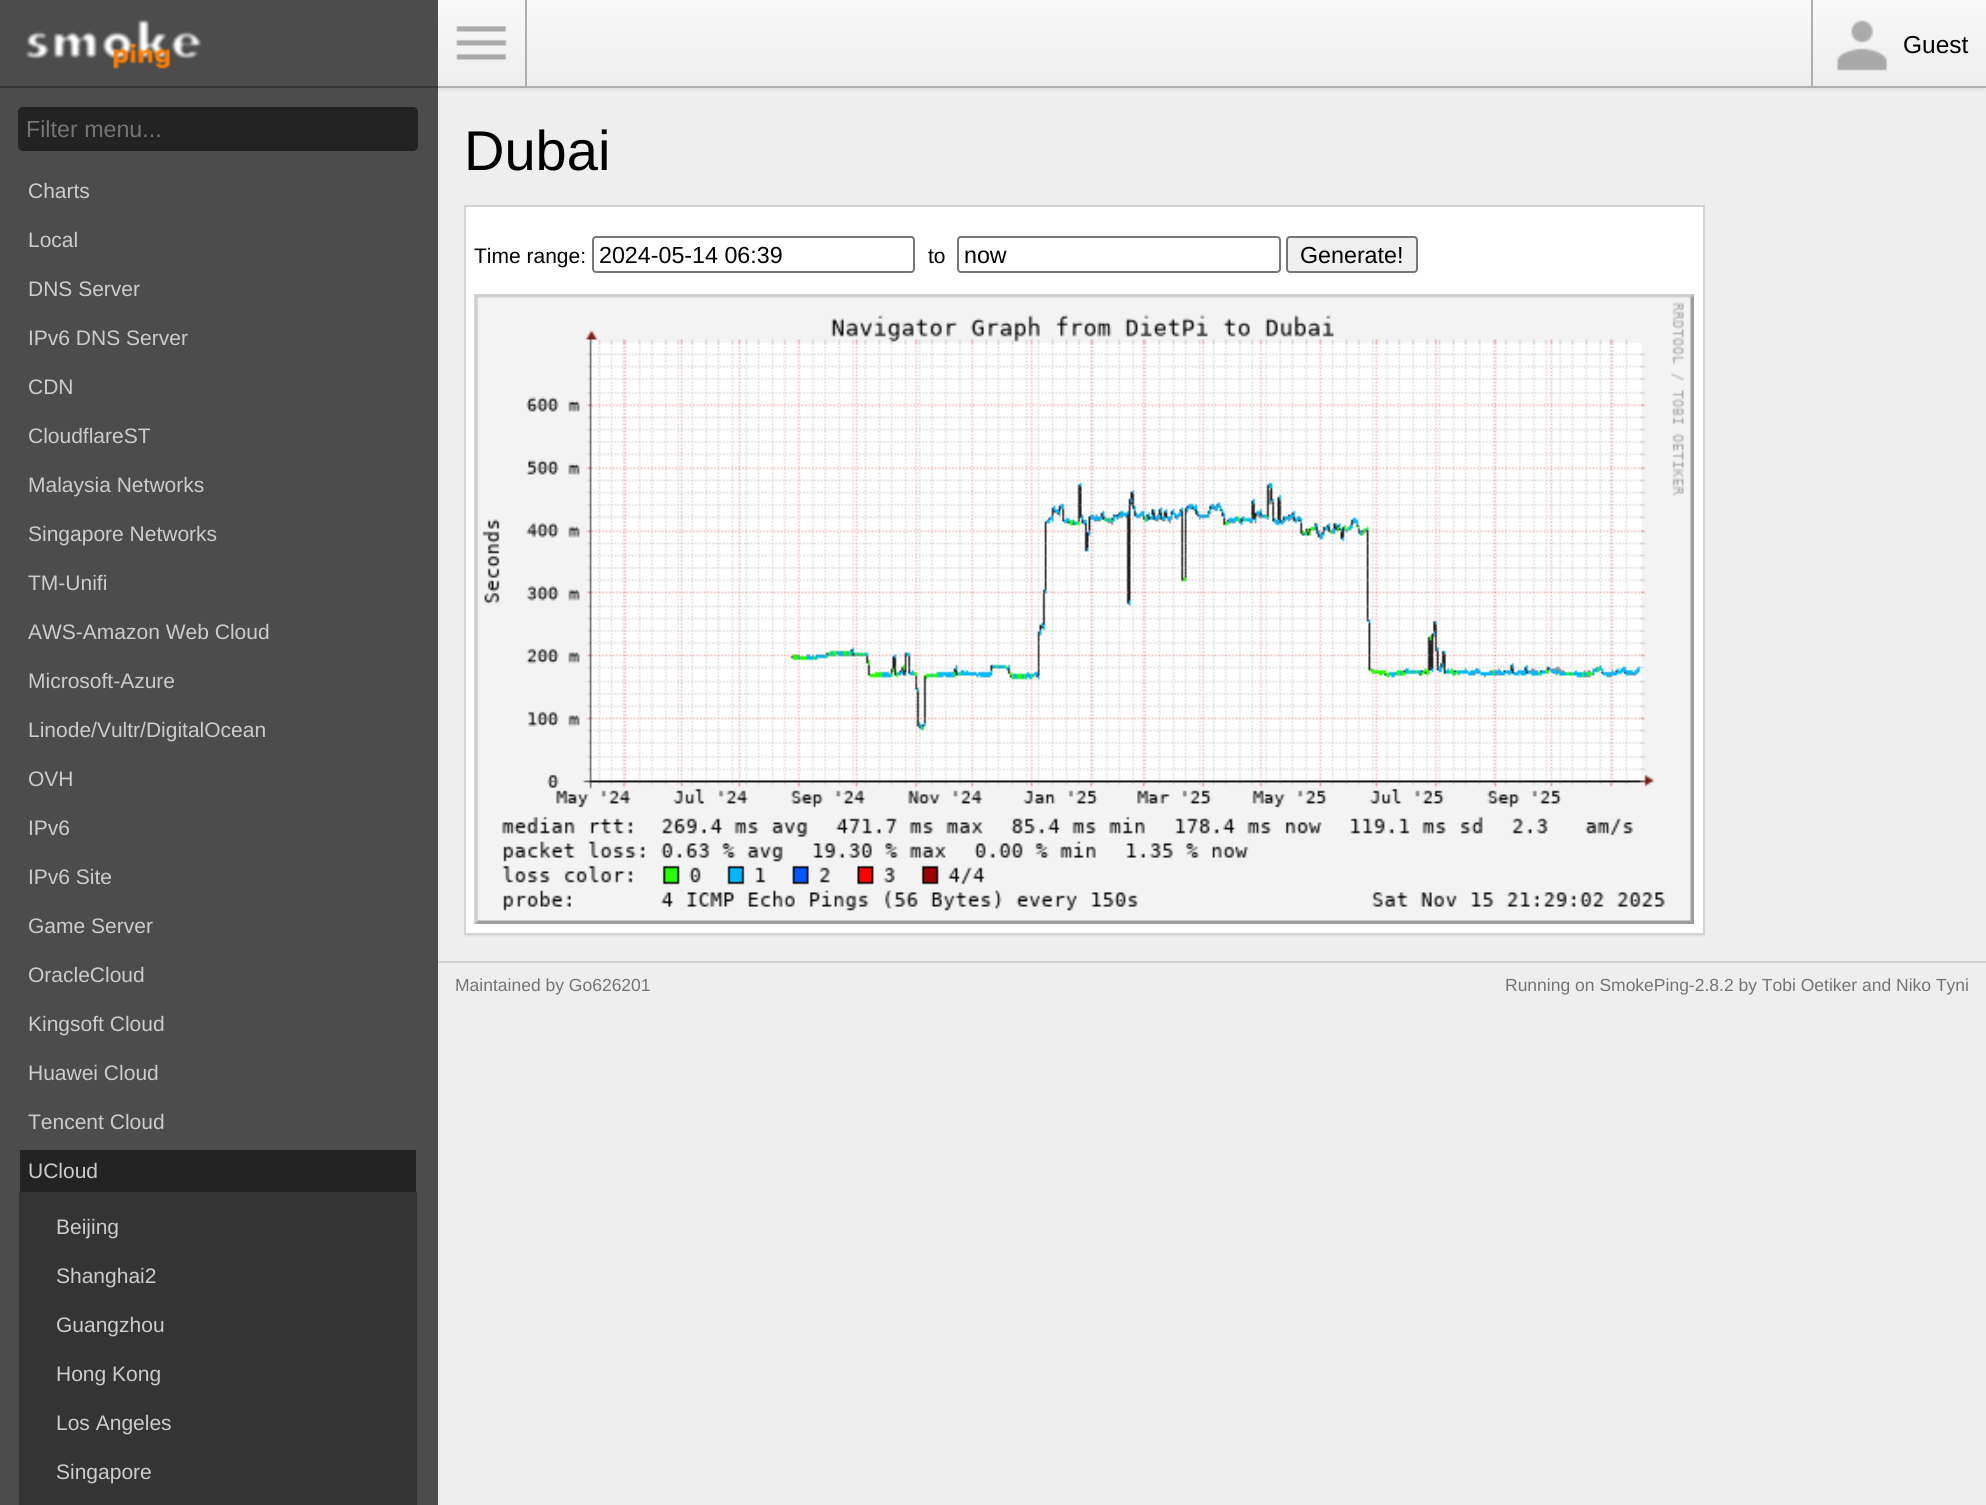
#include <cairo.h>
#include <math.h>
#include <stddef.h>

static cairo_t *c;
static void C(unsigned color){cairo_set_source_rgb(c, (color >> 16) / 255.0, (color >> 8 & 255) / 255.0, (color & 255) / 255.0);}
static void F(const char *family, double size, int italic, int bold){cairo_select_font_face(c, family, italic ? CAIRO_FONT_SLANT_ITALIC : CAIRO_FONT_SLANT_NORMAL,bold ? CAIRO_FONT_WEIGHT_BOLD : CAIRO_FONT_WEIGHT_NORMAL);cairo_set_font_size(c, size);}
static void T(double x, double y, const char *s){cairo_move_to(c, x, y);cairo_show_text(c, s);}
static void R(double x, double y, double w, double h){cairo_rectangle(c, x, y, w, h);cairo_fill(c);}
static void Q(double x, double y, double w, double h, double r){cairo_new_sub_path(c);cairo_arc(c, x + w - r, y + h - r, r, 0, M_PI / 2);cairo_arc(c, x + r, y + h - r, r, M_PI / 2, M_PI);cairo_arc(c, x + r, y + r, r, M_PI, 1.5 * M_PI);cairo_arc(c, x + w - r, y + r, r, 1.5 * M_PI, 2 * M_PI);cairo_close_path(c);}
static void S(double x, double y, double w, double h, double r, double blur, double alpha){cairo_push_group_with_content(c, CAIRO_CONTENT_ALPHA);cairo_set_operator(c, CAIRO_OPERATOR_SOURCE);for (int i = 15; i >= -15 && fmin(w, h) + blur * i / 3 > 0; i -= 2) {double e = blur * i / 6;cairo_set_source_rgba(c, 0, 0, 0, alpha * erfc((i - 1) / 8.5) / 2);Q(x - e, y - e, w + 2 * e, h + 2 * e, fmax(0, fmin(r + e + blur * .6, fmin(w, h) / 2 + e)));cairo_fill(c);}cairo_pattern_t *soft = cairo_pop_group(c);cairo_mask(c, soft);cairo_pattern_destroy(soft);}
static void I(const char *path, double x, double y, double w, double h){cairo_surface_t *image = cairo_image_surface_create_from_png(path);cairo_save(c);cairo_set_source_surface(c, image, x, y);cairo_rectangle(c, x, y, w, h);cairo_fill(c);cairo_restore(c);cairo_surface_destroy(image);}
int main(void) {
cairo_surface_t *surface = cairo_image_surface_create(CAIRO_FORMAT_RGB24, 1986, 1505);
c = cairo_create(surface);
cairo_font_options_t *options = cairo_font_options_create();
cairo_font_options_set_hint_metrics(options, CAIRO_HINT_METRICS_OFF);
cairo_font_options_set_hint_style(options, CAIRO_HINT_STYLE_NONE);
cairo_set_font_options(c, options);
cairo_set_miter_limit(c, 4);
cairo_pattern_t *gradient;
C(0xeeeeee);
cairo_paint(c);
C(0x4c4c4c);
R(0,0,438,1505);
C(0x373737);
R(0,86,438,2);
C(0x000000);
S(439,7,1546,84,0,1,.05);
gradient = cairo_pattern_create_linear(1212,0,1212,86);
cairo_pattern_add_color_stop_rgba(gradient,0,0.973,0.973,0.973,1);
cairo_pattern_add_color_stop_rgba(gradient,1,0.933,0.933,0.933,1);
cairo_set_source(c,gradient);
cairo_pattern_destroy(gradient);
R(438,0,1548,86);
C(0xafafaf);
R(438,86,1548,2);
R(525,0,2,88);
I("1.png",456,26,51,34);
R(1811,0,2,88);
I("2.png",1836,20,52,51);
F("Liberation Sans",24.5,0,0);
C(0x000000);
T(1903,53,"Guest");
I("3.png",26,19,176,50);
C(0x232323);
Q(18,107,400,44,5);
cairo_fill(c);
F("Liberation Sans",23.25,0,0);
C(0x747474);
T(26,137,"Filter menu...");
F("Liberation Sans",21,0,0);
C(0xcccccc);
T(28,198,"Charts");
T(28,247,"Local");
T(28,296,"DNS Server");
T(28,345,"IPv6 DNS Server");
T(28,394,"CDN");
T(28,443,"CloudflareST");
T(28,492,"Malaysia Networks");
T(28,541,"Singapore Networks");
T(28,590,"TM-Unifi");
T(28,639,"AWS-Amazon Web Cloud");
T(28,688,"Microsoft-Azure");
T(28,737,"Linode/Vultr/DigitalOcean");
T(28,786,"OVH");
T(28,835,"IPv6");
T(28,884,"IPv6 Site");
T(28,933,"Game Server");
T(28,982,"OracleCloud");
T(28,1031,"Kingsoft Cloud");
T(28,1080,"Huawei Cloud");
T(28,1129,"Tencent Cloud");
C(0x232323);
R(20,1150,396,42);
C(0xcccccc);
T(28,1178,"UCloud");
C(0x343434);
R(19,1192,398,313);
C(0xcccccc);
T(56,1234,"Beijing");
T(56,1283,"Shanghai2");
T(56,1332,"Guangzhou");
T(56,1381,"Hong Kong");
T(56,1430,"Los Angeles");
T(56,1479,"Singapore");
F("Liberation Sans",56,0,0);
C(0x000000);
T(464,170,"Dubai");
C(0x000000);
S(466,210,1237,726,0,1,.1);
C(0xffffff);
cairo_rectangle(c,465,206,1239,728);
cairo_fill_preserve(c);
C(0xd4d4d4);
cairo_stroke(c);
F("Liberation Sans",21,0,0);
C(0x000000);
T(474,263,"Time range:");
Q(593,237,321,35,3);
C(0x767676);
cairo_stroke(c);
F("Liberation Sans",23.25,0,0);
C(0x000000);
T(599,263,"2024-05-14 06:39");
F("Liberation Sans",21,0,0);
T(928,263,"to");
Q(958,237,322,35,3);
C(0x767676);
cairo_stroke(c);
F("Liberation Sans",23.25,0,0);
C(0x000000);
T(964,263,"now");
C(0xefefef);
Q(1287,237,130,35,3);
cairo_fill_preserve(c);
C(0x767676);
cairo_stroke(c);
C(0x000000);
T(1300,263,"Generate!");
I("4.png",474,294,1220,630);
C(0xd4d4d4);
R(438,961,1548,2);
F("Liberation Sans",17.5,0,0);
C(0x747474);
T(455,991,"Maintained by Go626201");
T(1505,991,"Running on SmokePing-2.8.2 by Tobi Oetiker and Niko Tyni");
cairo_surface_write_to_png(surface, "o.png");
cairo_font_options_destroy(options);
cairo_destroy(c);
cairo_surface_destroy(surface);
return 0;
}
